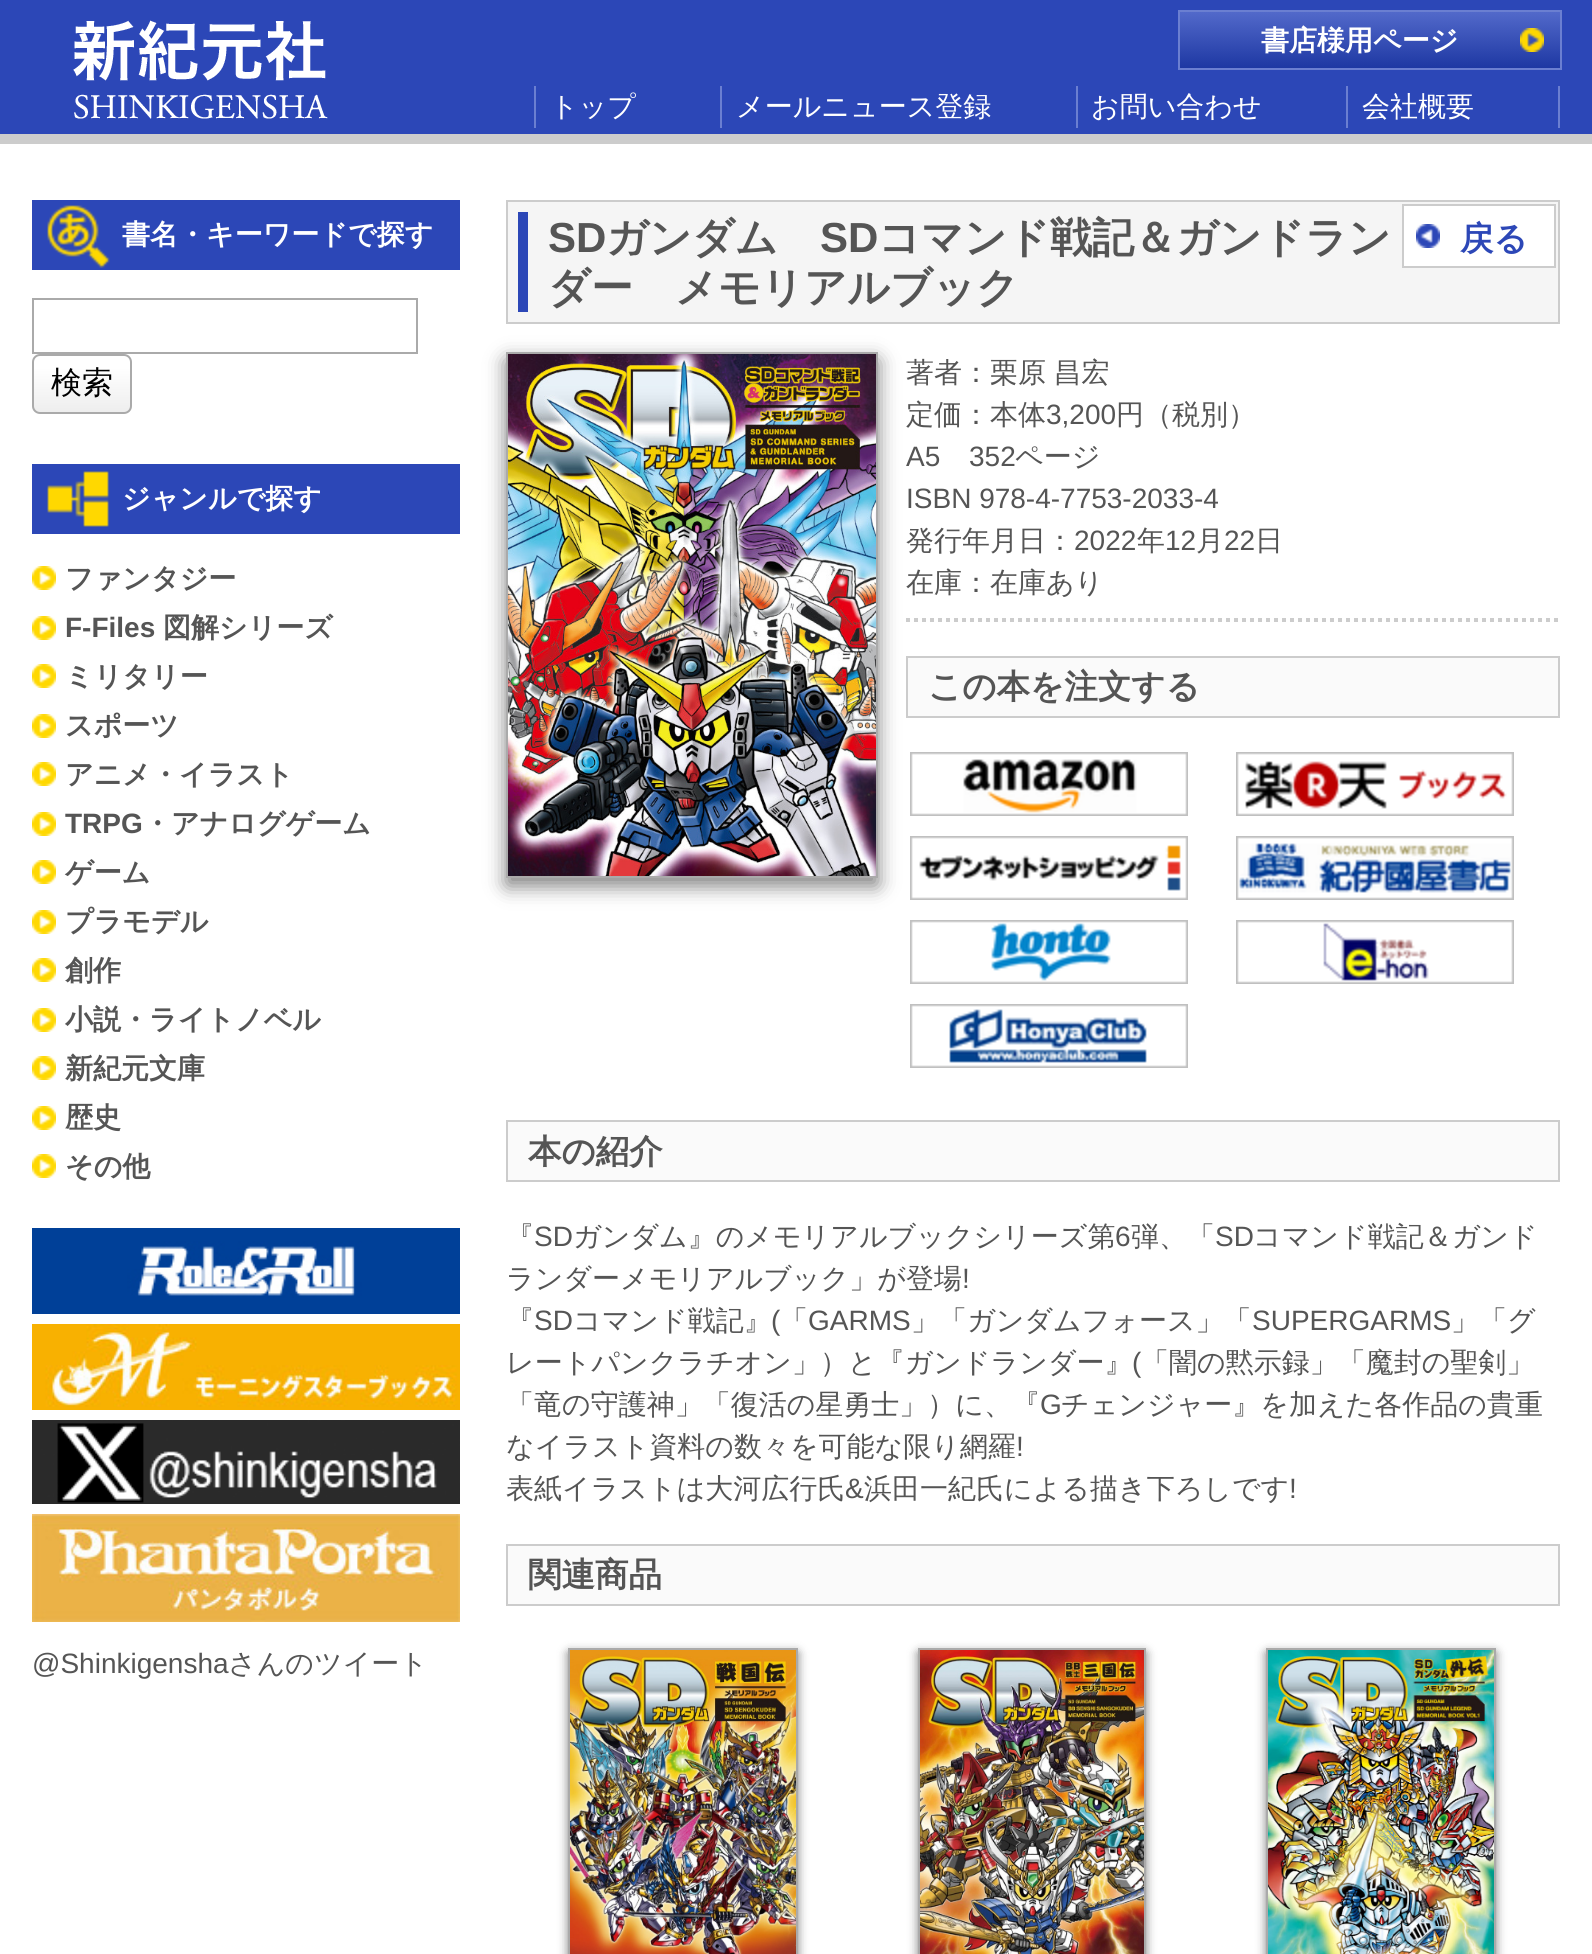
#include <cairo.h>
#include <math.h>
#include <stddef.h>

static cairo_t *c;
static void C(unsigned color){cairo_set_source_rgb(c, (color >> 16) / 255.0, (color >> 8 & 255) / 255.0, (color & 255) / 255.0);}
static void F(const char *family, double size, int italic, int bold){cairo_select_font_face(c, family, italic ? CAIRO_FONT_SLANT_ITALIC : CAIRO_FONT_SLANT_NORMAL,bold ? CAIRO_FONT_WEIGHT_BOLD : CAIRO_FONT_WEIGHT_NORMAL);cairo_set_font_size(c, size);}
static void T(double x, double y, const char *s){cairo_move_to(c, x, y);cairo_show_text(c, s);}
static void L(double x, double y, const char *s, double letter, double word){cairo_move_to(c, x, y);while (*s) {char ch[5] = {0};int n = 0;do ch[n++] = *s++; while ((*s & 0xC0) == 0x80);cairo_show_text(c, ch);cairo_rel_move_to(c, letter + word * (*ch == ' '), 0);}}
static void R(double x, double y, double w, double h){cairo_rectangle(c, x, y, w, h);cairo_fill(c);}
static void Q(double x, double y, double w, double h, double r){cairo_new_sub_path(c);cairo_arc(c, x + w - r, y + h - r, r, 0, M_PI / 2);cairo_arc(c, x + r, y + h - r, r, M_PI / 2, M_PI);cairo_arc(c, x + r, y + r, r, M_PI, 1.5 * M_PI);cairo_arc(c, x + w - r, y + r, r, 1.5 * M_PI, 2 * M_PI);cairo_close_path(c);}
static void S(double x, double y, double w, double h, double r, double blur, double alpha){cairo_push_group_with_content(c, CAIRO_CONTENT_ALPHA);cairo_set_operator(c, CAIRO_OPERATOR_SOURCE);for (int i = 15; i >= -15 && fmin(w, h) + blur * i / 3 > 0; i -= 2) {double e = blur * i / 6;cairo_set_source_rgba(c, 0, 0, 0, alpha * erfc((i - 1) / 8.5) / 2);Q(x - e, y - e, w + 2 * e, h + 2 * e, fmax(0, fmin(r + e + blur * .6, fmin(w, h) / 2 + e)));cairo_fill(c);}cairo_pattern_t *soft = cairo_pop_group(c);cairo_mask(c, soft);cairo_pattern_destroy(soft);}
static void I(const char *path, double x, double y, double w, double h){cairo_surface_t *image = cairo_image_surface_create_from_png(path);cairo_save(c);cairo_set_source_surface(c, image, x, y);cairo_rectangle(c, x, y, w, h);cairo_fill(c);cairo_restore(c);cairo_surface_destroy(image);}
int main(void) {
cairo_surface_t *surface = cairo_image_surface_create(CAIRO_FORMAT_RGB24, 1592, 1954);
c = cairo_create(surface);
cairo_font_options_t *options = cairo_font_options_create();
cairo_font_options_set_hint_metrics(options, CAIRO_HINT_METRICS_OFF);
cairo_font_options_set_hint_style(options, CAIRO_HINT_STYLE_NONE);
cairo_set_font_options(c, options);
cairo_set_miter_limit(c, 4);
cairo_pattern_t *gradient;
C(0x2c47b7);
cairo_paint(c);
C(0xcccccc);
R(0,134,1592,10);
I("1.png",73,20,255,99);
I("2.png",1180,12,380,56);
cairo_rectangle(c,1179,11,382,58);
C(0x6b7fd1);
cairo_stroke(c);
F("WenQuanYi Zen Hei",28,0,1);
C(0xffffff);
T(1261,50,"書店様用ページ");
C(0x6b7fd1);
R(534,86,2,42);
F("WenQuanYi Zen Hei Medium",28,0,0);
C(0xffffff);
T(550,116,"トップ");
C(0x6b7fd1);
R(720,86,2,42);
C(0xffffff);
T(736,116,"メールニュース登録");
C(0x6b7fd1);
R(1076,86,2,42);
C(0xffffff);
T(1091,116,"お問い合わせ");
C(0x6b7fd1);
R(1558,86,2,42);
R(1346,86,2,42);
C(0xffffff);
T(1362,116,"会社概要");
R(0,144,1592,1810);
C(0x2c47b7);
R(32,200,428,70);
I("3.png",47,205,63,63);
F("WenQuanYi Zen Hei",28,0,1);
C(0xffffff);
T(122,244,"書名・キーワードで探す");
cairo_rectangle(c,33,299,384,54);
C(0xaaaaaa);
cairo_stroke(c);
cairo_save(c);
Q(32,354,100,60,8);
cairo_clip(c);
gradient = cairo_pattern_create_linear(82,356,82,412);
cairo_pattern_add_color_stop_rgba(gradient,.2,1,1,1,1);
cairo_pattern_add_color_stop_rgba(gradient,1,0.933,0.933,0.933,1);
cairo_set_source(c,gradient);
cairo_pattern_destroy(gradient);
R(32,356,100,56);
cairo_restore(c);
Q(33,355,98,58,7);
cairo_stroke(c);
F("WenQuanYi Zen Hei Medium",31,0,0);
C(0x000000);
T(51,393,"検索");
C(0x2c47b7);
R(32,464,428,70);
I("4.png",47,471,62,56);
F("WenQuanYi Zen Hei",28,0,1);
C(0xffffff);
T(122,508,"ジャンルで探す");
I("5.png",32,566,24,24);
C(0x555555);
T(65,588,"ファンタジー");
I("5.png",32,616,24,24);
F("Liberation Sans",28,0,1);
T(65,637,"F-Files");
F("WenQuanYi Zen Hei",28,0,1);
T(163,637,"図解シリーズ");
I("5.png",32,664,24,24);
T(65,686,"ミリタリー");
I("5.png",32,714,24,24);
T(65,735,"スポーツ");
I("5.png",32,762,24,24);
T(65,784,"アニメ・イラスト");
I("5.png",32,812,24,24);
F("Liberation Sans",28,0,1);
T(65,833,"TRPG");
F("WenQuanYi Zen Hei",28,0,1);
T(143,833,"・アナログゲーム");
I("5.png",32,860,24,24);
T(65,882,"ゲーム");
I("5.png",32,910,24,24);
T(65,931,"プラモデル");
I("5.png",32,958,24,24);
T(65,980,"創作");
I("5.png",32,1008,24,24);
T(65,1029,"小説・ライトノベル");
I("5.png",32,1056,24,24);
T(65,1078,"新紀元文庫");
I("5.png",32,1106,24,24);
T(65,1127,"歴史");
I("5.png",32,1154,24,24);
T(65,1176,"その他");
I("6.png",32,1228,428,86);
I("7.png",32,1324,428,86);
I("8.png",32,1420,428,84);
I("9.png",32,1514,428,108);
F("Liberation Sans",28,0,0);
T(32,1673,"@Shinkigensha");
F("WenQuanYi Zen Hei Medium",28,0,0);
T(228,1673,"さんのツイート");
C(0xf5f5f5);
cairo_rectangle(c,507,201,1052,122);
cairo_fill_preserve(c);
C(0xcccccc);
cairo_stroke(c);
C(0x2c47b7);
R(518,212,10,100);
F("Liberation Sans",42,0,1);
C(0x555555);
T(548,252,"SD");
F("WenQuanYi Zen Hei",42,0,1);
T(606,252,"ガンダム");
F("Liberation Sans",42,0,1);
T(820,252,"SD");
F("WenQuanYi Zen Hei",42,0,1);
T(878,252,"コマンド戦記＆ガンドラン");
T(548,302,"ダー　メモリアルブック");
C(0xffffff);
R(1404,206,150,60);
I("10.png",1416,224,24,24);
cairo_rectangle(c,1403,205,152,62);
C(0xcccccc);
cairo_stroke(c);
F("WenQuanYi Zen Hei",33.5,0,1);
C(0x2c47b7);
T(1460,250,"戻る");
C(0x000000);
S(506,360,372,526,1,10,.5);
cairo_rectangle(c,507,353,370,524);
C(0xaaaaaa);
cairo_stroke(c);
I("11.png",508,354,368,522);
cairo_new_path(c);
cairo_move_to(c,906,620);
cairo_line_to(c,1560,620);
C(0xcccccc);
cairo_set_line_width(c,4);
cairo_set_dash(c,(double[]){4,4},2,0);
cairo_stroke(c);
F("WenQuanYi Zen Hei Medium",28,0,0);
C(0x555555);
L(906,382,"著者：栗原 昌宏",0,-1);
T(906,424,"定価：本体");
F("Liberation Sans",28,0,0);
T(1046,424,"3,200");
F("WenQuanYi Zen Hei Medium",28,0,0);
T(1116,424,"円（税別）");
F("Liberation Sans",28,0,0);
T(906,466,"A5");
T(969,466,"352");
F("WenQuanYi Zen Hei Medium",28,0,0);
T(1015,466,"ページ");
F("Liberation Sans",28,0,0);
T(906,508,"ISBN 978-4-7753-2033-4");
F("WenQuanYi Zen Hei Medium",28,0,0);
T(906,550,"発行年月日：");
F("Liberation Sans",28,0,0);
T(1074,550,"2022");
F("WenQuanYi Zen Hei Medium",28,0,0);
T(1137,550,"年");
F("Liberation Sans",28,0,0);
T(1165,550,"12");
F("WenQuanYi Zen Hei Medium",28,0,0);
T(1196,550,"月");
F("Liberation Sans",28,0,0);
T(1224,550,"22");
F("WenQuanYi Zen Hei Medium",28,0,0);
T(1255,550,"日");
T(906,592,"在庫：在庫あり");
C(0xfafafa);
cairo_rectangle(c,907,657,652,60);
cairo_fill_preserve(c);
C(0xcccccc);
cairo_set_line_width(c,2);
cairo_set_dash(c,NULL,0,0);
cairo_stroke(c);
F("WenQuanYi Zen Hei",33.5,0,1);
C(0x555555);
T(928,698,"この本を注文する");
I("12.png",910,752,278,64);
I("13.png",1236,752,278,64);
I("14.png",910,836,278,64);
I("15.png",1236,836,278,64);
I("16.png",910,920,278,64);
I("17.png",1236,920,278,64);
I("18.png",910,1004,278,64);
C(0xfafafa);
cairo_rectangle(c,507,1121,1052,60);
cairo_fill_preserve(c);
C(0xcccccc);
cairo_stroke(c);
C(0x555555);
T(528,1163,"本の紹介");
F("WenQuanYi Zen Hei Medium",28,0,0);
T(506,1246,"『");
F("Liberation Sans",28,0,0);
T(534,1246,"SD");
F("WenQuanYi Zen Hei Medium",28,0,0);
T(573,1246,"ガンダム』のメモリアルブックシリーズ第");
F("Liberation Sans",28,0,0);
T(1115,1246,"6");
F("WenQuanYi Zen Hei Medium",28,0,0);
T(1131,1246,"弾、「");
F("Liberation Sans",28,0,0);
T(1215,1246,"SD");
F("WenQuanYi Zen Hei Medium",28,0,0);
T(1253,1246,"コマンド戦記＆ガンド");
T(506,1288,"ランダーメモリアルブック」が登場");
F("Liberation Sans",28,0,0);
T(962,1288,"!");
F("WenQuanYi Zen Hei Medium",28,0,0);
T(506,1330,"『");
F("Liberation Sans",28,0,0);
T(534,1330,"SD");
F("WenQuanYi Zen Hei Medium",28,0,0);
T(573,1330,"コマンド戦記』");
F("Liberation Sans",28,0,0);
T(771,1330,"(");
F("WenQuanYi Zen Hei Medium",28,0,0);
T(780,1330,"「");
F("Liberation Sans",28,0,0);
T(808,1330,"GARMS");
F("WenQuanYi Zen Hei Medium",28,0,0);
T(911,1330,"」「ガンダムフォース」「");
F("Liberation Sans",28,0,0);
T(1252,1330,"SUPERGARMS");
F("WenQuanYi Zen Hei Medium",28,0,0);
T(1451,1330,"」「グ");
T(506,1372,"レートパンクラチオン」）と『ガンドランダー』");
F("Liberation Sans",28,0,0);
T(1132,1372,"(");
F("WenQuanYi Zen Hei Medium",28,0,0);
T(1141,1372,"「闇の黙示録」「魔封の聖剣」");
T(506,1414,"「竜の守護神」「復活の星勇士」）に、『");
F("Liberation Sans",28,0,0);
T(1040,1414,"G");
F("WenQuanYi Zen Hei Medium",28,0,0);
T(1061,1414,"チェンジャー』を加えた各作品の貴重");
T(506,1456,"なイラスト資料の数々を可能な限り網羅");
F("Liberation Sans",28,0,0);
T(1016,1456,"!");
F("WenQuanYi Zen Hei Medium",28,0,0);
T(506,1498,"表紙イラストは大河広行氏");
F("Liberation Sans",28,0,0);
T(845,1498,"&");
F("WenQuanYi Zen Hei Medium",28,0,0);
T(864,1498,"浜田一紀氏による描き下ろしです");
F("Liberation Sans",28,0,0);
T(1289,1498,"!");
C(0xfafafa);
cairo_rectangle(c,507,1545,1052,60);
cairo_fill_preserve(c);
C(0xcccccc);
cairo_stroke(c);
F("WenQuanYi Zen Hei",33.5,0,1);
C(0x555555);
T(528,1586,"関連商品");
C(0x000000);
S(568,1652,230,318,1,5,.5);
cairo_rectangle(c,569,1649,228,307);
C(0xaaaaaa);
cairo_stroke(c);
I("19.png",570,1650,226,304);
C(0x000000);
S(918,1652,228,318,1,5,.5);
cairo_rectangle(c,919,1649,226,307);
C(0xaaaaaa);
cairo_stroke(c);
I("20.png",920,1650,224,304);
C(0x000000);
S(1266,1652,230,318,1,5,.5);
cairo_rectangle(c,1267,1649,228,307);
C(0xaaaaaa);
cairo_stroke(c);
I("21.png",1268,1650,226,304);
cairo_surface_write_to_png(surface, "o.png");
cairo_font_options_destroy(options);
cairo_destroy(c);
cairo_surface_destroy(surface);
return 0;
}
